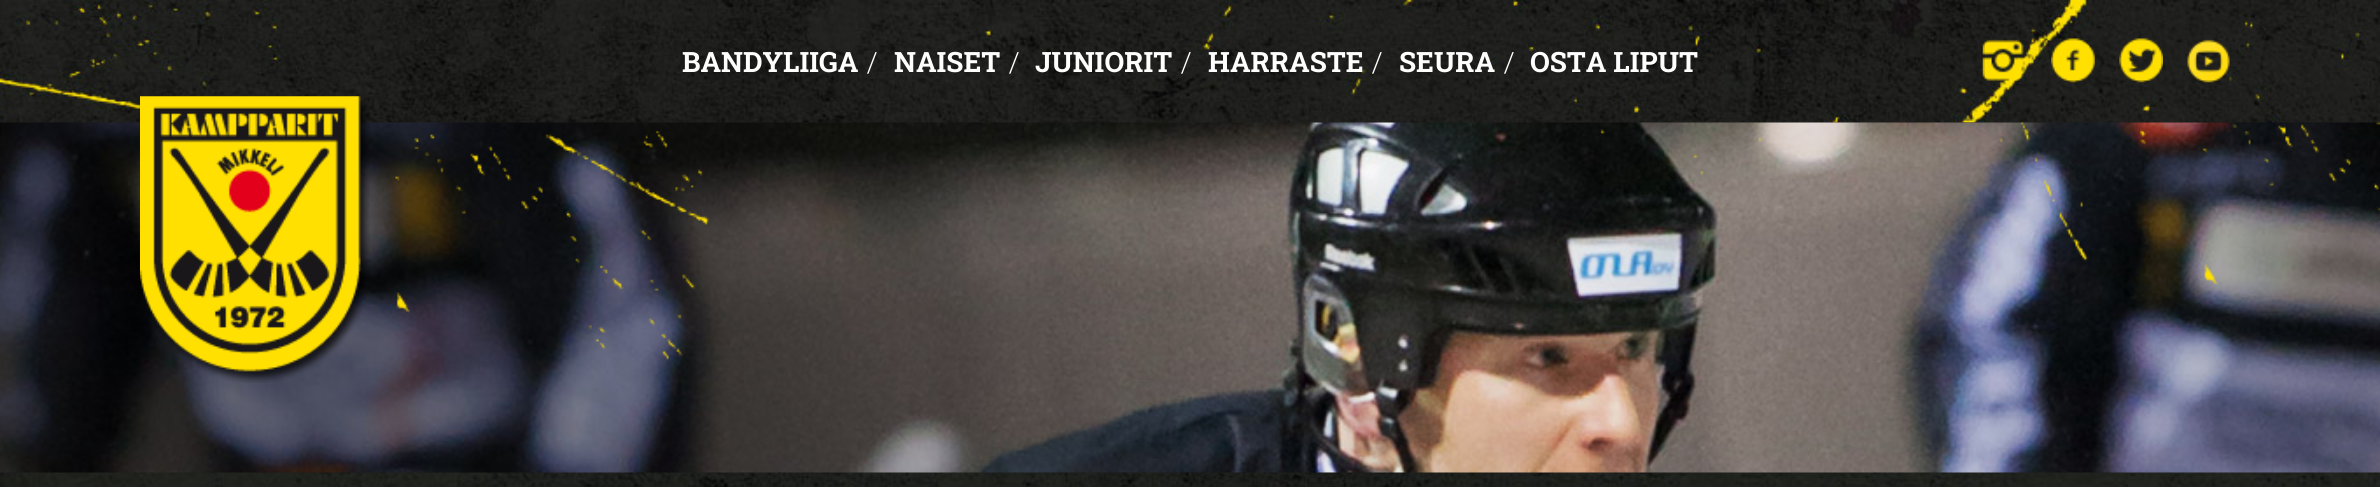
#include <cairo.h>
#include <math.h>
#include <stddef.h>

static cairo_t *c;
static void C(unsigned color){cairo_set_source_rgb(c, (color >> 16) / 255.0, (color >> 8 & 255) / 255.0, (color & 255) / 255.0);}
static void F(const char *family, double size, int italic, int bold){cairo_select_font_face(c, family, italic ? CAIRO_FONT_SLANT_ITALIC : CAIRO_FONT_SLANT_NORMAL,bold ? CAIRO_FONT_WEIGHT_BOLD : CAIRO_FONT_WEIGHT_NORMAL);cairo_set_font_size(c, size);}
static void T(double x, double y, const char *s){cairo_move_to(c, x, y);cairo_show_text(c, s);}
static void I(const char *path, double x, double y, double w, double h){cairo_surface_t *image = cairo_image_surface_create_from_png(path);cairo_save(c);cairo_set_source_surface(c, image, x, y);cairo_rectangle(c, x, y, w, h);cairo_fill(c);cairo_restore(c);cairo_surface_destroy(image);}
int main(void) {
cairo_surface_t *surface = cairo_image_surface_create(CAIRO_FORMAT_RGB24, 2380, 487);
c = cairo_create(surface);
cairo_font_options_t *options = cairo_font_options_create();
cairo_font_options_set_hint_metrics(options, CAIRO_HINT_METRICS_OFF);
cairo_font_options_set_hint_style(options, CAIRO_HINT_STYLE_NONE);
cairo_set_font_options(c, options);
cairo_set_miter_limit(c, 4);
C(0xffffff);
cairo_paint(c);
I("1.png",0,122,2380,365);
I("2.png",0,0,2380,123);
F("Roboto Slab",28,0,1);
C(0xffffff);
T(682,72,"BANDYLIIGA");
F("Roboto Slab Light",28,0,0);
T(867,72,"/");
F("Roboto Slab",28,0,1);
T(894,72,"NAISET");
F("Roboto Slab Light",28,0,0);
T(1009,72,"/");
F("Roboto Slab",28,0,1);
T(1035,72,"JUNIORIT");
F("Roboto Slab Light",28,0,0);
T(1181,72,"/");
F("Roboto Slab",28,0,1);
T(1208,72,"HARRASTE");
F("Roboto Slab Light",28,0,0);
T(1372,72,"/");
F("Roboto Slab",28,0,1);
T(1399,72,"SEURA");
F("Roboto Slab Light",28,0,0);
T(1504,72,"/");
F("Roboto Slab",28,0,1);
T(1530,72,"OSTA LIPUT");
I("3.png",1982,39,42,42);
I("4.png",2051,38,44,45);
I("5.png",2119,38,44,45);
I("6.png",2187,39,43,44);
I("8.png",0,122,2380,351);
I("7.png",140,96,230,287);
I("9.png",395,131,314,229);
I("10.png",1600,122,780,163);
cairo_surface_write_to_png(surface, "o.png");
cairo_font_options_destroy(options);
cairo_destroy(c);
cairo_surface_destroy(surface);
return 0;
}
